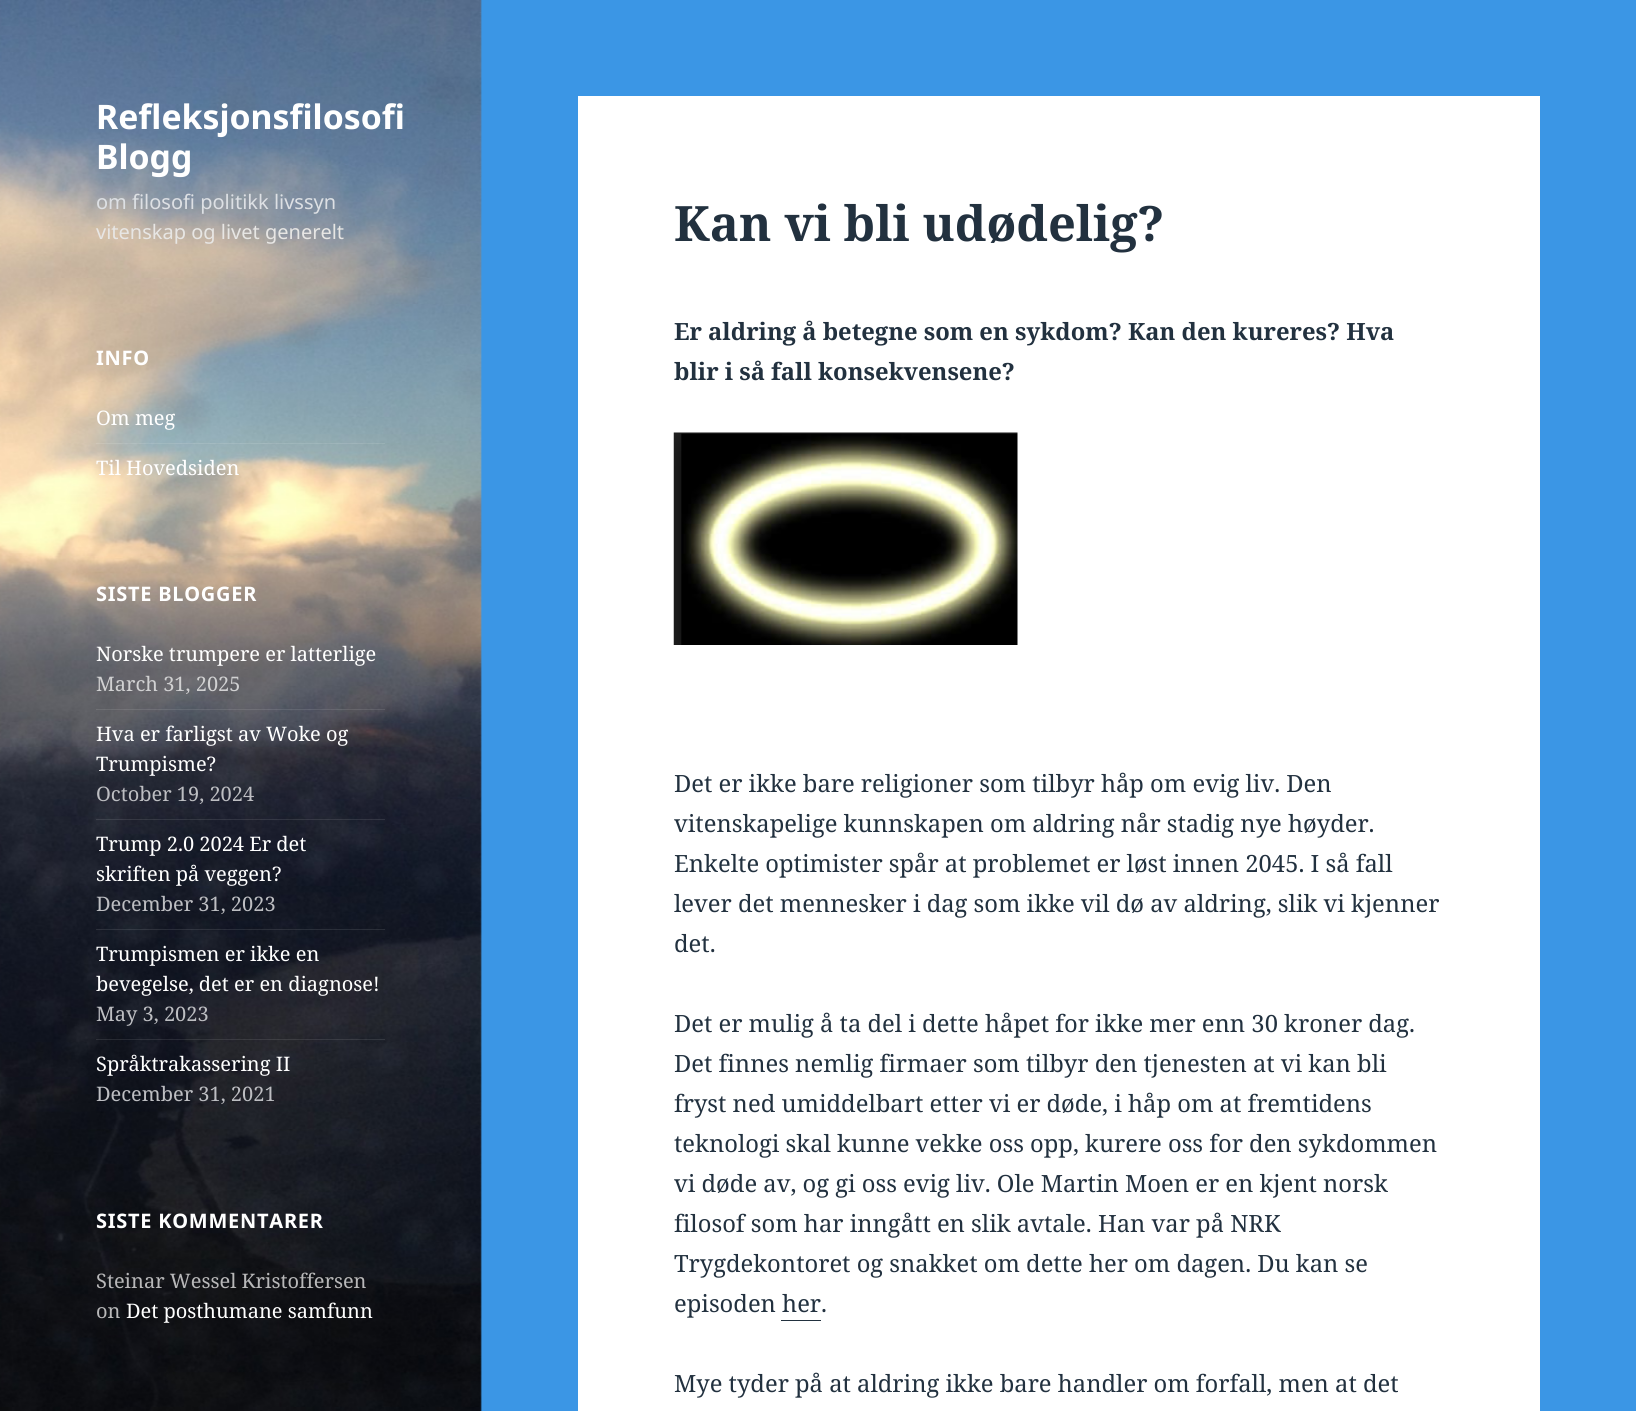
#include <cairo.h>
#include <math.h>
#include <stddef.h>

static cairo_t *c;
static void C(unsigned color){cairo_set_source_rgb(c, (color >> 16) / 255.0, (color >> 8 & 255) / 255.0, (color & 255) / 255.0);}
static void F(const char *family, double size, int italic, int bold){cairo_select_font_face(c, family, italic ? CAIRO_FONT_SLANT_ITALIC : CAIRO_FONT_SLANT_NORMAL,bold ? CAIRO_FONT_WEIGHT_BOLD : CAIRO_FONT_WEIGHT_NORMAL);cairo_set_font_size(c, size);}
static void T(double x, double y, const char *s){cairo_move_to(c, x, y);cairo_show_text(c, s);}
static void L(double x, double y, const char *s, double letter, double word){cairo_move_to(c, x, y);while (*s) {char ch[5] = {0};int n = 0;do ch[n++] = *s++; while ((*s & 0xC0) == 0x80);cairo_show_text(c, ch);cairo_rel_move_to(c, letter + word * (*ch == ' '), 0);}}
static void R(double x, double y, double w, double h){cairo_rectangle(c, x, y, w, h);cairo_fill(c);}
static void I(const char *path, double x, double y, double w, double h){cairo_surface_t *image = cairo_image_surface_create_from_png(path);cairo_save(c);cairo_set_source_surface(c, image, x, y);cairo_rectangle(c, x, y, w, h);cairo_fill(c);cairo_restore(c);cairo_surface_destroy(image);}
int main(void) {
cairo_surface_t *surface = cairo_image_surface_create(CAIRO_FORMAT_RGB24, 1636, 1411);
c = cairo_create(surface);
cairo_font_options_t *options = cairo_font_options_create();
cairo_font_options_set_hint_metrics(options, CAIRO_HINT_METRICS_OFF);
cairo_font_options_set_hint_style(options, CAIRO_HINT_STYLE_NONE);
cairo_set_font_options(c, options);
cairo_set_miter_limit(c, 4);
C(0x3b96e5);
cairo_paint(c);
I("1.png",0,0,482,1411);
F("Noto Sans",33.75,0,1);
C(0xffffff);
T(96,129,"Refleksjonsfilosofi");
T(96,169,"Blogg");
F("Noto Sans",20,0,0);
C(0xdde0e4);
T(96,209,"om filosofi politikk livssyn");
C(0xe7e6e4);
T(96,239,"vitenskap og livet generelt");
F("Noto Sans",20,0,1);
C(0xffffff);
L(96,365,"INFO",.75,0);
F("Noto Serif",20,0,0);
T(96,425,"Om meg");
cairo_set_source_rgba(c,1,1,1,0.1);
R(96,443,289,1);
C(0xffffff);
T(96,475,"Til Hovedsiden");
F("Noto Sans",20,0,1);
L(96,601,"SISTE BLOGGER",.75,0);
F("Noto Serif",20,0,0);
T(96,661,"Norske trumpere er latterlige");
C(0xd1d1d2);
T(96,691,"March 31, 2025");
cairo_set_source_rgba(c,1,1,1,0.1);
R(96,709,289,1);
C(0xffffff);
T(96,741,"Hva er farligst av Woke og");
T(96,771,"Trumpisme?");
C(0xbdbec2);
T(96,801,"October 19, 2024");
cairo_set_source_rgba(c,1,1,1,0.1);
R(96,819,289,1);
C(0xffffff);
T(96,851,"Trump 2.0 2024 Er det");
T(96,881,"skriften på veggen?");
C(0xbdbec2);
T(96,911,"December 31, 2023");
cairo_set_source_rgba(c,1,1,1,0.1);
R(96,929,289,1);
C(0xffffff);
T(96,961,"Trumpismen er ikke en");
T(96,991,"bevegelse, det er en diagnose!");
C(0xbdbec2);
T(96,1021,"May 3, 2023");
cairo_set_source_rgba(c,1,1,1,0.1);
R(96,1039,289,1);
C(0xffffff);
T(96,1071,"Språktrakassering II");
C(0xbdbec2);
T(96,1101,"December 31, 2021");
F("Noto Sans",20,0,1);
C(0xffffff);
L(96,1228,"SISTE KOMMENTARER",.75,0);
F("Noto Serif",20,0,0);
C(0xb8b8b9);
T(96,1288,"Steinar Wessel Kristoffersen");
T(96,1318,"on");
C(0xffffff);
T(126,1318,"Det posthumane samfunn");
R(578,96,962,1315);
F("Noto Serif",48.75,0,1);
C(0x22313f);
T(674,241,"Kan vi bli udødelig?");
F("Noto Serif",23.75,0,1);
T(674,340,"Er aldring å betegne som en sykdom? Kan den kureres? Hva");
T(674,380,"blir i så fall konsekvensene?");
I("2.png",673,432,345,213);
F("Noto Serif",23.75,0,0);
T(674,792,"Det er ikke bare religioner som tilbyr håp om evig liv. Den");
T(674,832,"vitenskapelige kunnskapen om aldring når stadig nye høyder.");
T(674,872,"Enkelte optimister spår at problemet er løst innen 2045. I så fall");
T(674,912,"lever det mennesker i dag som ikke vil dø av aldring, slik vi kjenner");
T(674,952,"det.");
T(674,1032,"Det er mulig å ta del i dette håpet for ikke mer enn 30 kroner dag.");
T(674,1072,"Det finnes nemlig firmaer som tilbyr den tjenesten at vi kan bli");
T(674,1112,"fryst ned umiddelbart etter vi er døde, i håp om at fremtidens");
T(674,1152,"teknologi skal kunne vekke oss opp, kurere oss for den sykdommen");
T(674,1192,"vi døde av, og gi oss evig liv. Ole Martin Moen er en kjent norsk");
T(674,1232,"filosof som har inngått en slik avtale. Han var på NRK");
T(674,1272,"Trygdekontoret og snakket om dette her om dagen. Du kan se");
T(674,1312,"episoden her.");
R(781,1320,40,1);
T(674,1392,"Mye tyder på at aldring ikke bare handler om forfall, men at det");
cairo_surface_write_to_png(surface, "o.png");
cairo_font_options_destroy(options);
cairo_destroy(c);
cairo_surface_destroy(surface);
return 0;
}
